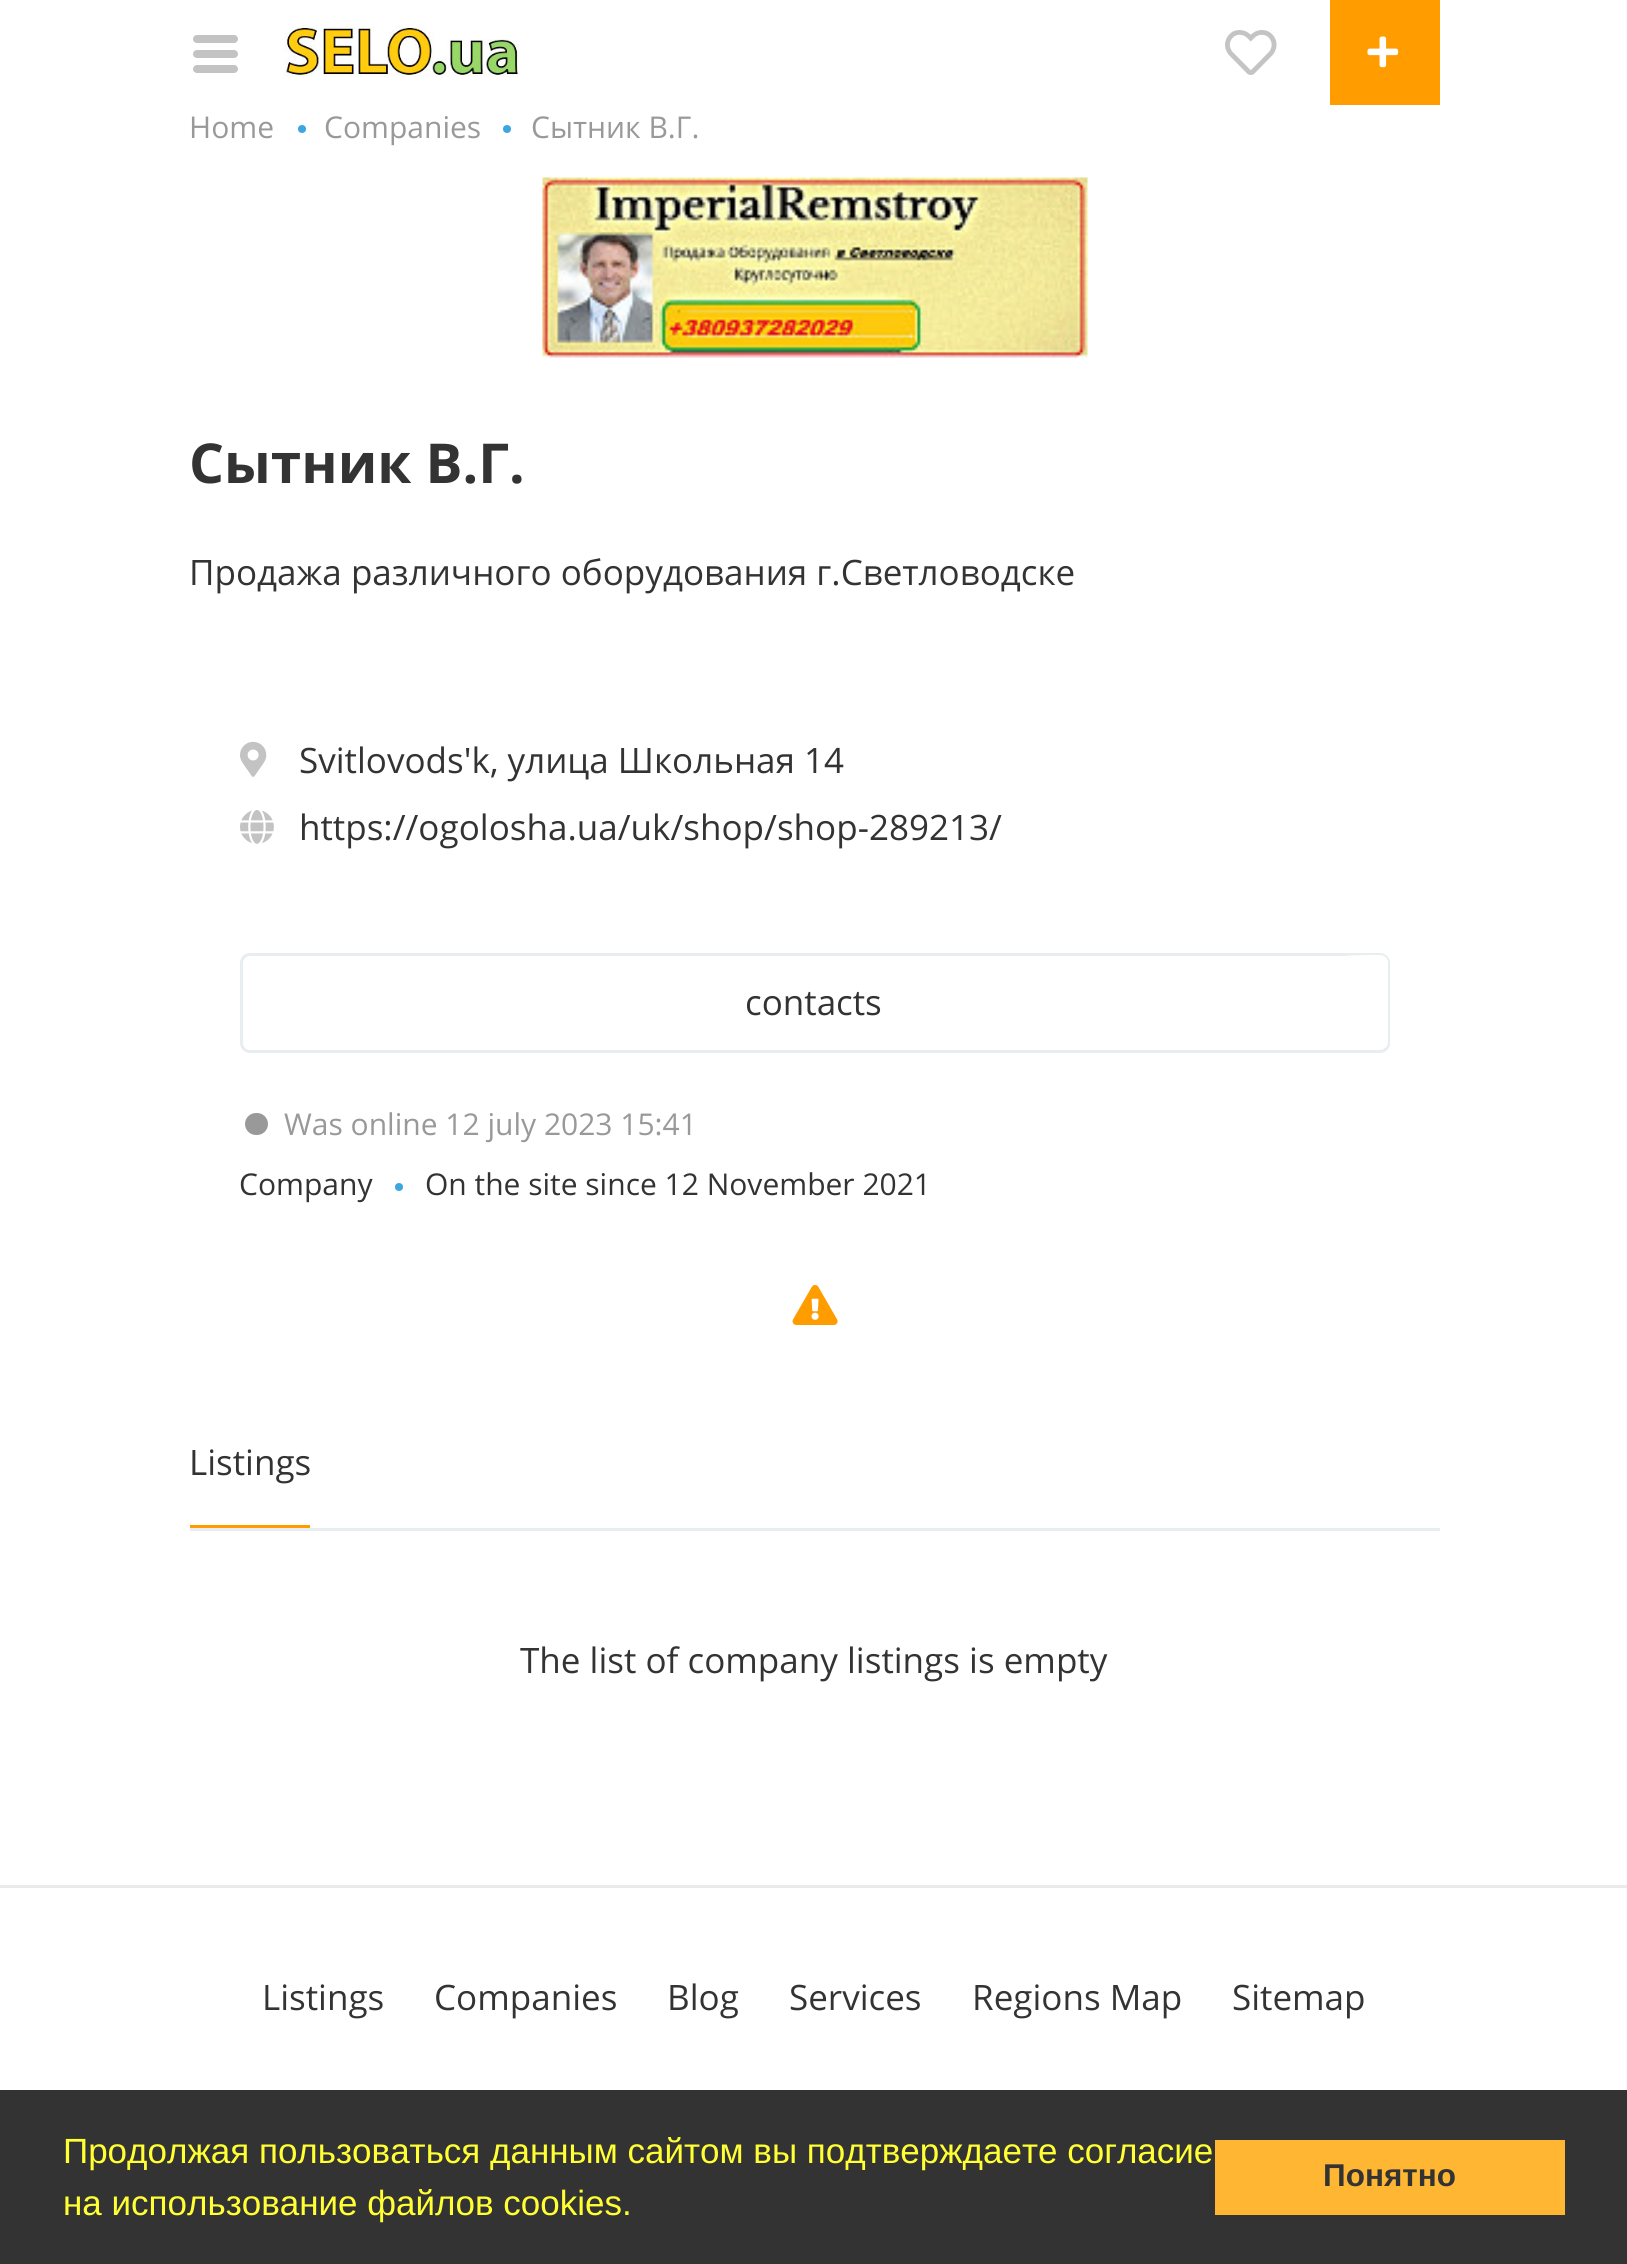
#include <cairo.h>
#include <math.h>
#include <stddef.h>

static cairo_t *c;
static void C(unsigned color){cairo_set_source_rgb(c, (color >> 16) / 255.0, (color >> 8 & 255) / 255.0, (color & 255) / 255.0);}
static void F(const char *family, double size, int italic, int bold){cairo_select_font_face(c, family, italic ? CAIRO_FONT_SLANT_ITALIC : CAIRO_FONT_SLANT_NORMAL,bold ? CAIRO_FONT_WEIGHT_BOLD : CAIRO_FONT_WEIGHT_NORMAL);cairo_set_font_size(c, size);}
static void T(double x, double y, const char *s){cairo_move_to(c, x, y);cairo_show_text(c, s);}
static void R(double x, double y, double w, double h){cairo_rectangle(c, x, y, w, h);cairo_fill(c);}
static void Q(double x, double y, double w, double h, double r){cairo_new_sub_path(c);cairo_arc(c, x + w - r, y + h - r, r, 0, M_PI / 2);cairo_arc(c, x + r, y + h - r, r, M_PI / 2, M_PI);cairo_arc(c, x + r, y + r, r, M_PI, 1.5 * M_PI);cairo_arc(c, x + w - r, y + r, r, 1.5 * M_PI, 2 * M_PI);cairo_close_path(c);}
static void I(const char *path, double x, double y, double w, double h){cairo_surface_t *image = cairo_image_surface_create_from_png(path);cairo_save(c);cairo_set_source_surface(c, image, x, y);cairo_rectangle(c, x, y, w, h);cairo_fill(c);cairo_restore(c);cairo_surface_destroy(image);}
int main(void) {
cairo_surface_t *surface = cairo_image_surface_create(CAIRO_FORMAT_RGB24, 1627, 2264);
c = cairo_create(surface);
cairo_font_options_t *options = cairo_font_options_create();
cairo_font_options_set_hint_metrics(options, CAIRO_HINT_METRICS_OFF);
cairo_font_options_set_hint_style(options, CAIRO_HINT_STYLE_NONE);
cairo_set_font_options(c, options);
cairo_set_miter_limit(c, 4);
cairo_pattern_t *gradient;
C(0xffffff);
cairo_paint(c);
C(0xc3c3c3);
Q(193,35,45,8,4);
cairo_fill(c);
Q(193,50,45,8,4);
cairo_fill(c);
Q(193,65,45,8,4);
cairo_fill(c);
I("1.png",284,26,235,51);
I("2.png",1225,30,52,45);
C(0xff9d00);
R(1330,0,110,105);
I("3.png",1367,36,32,32);
F("Open Sans",30,0,0);
C(0x999999);
T(189,138,"Home");
C(0x3ca6df);
cairo_new_path(c);
cairo_arc(c,302,129,4,0,2 * M_PI);
cairo_fill(c);
C(0x999999);
T(324,138,"Companies");
C(0x3ca6df);
cairo_new_path(c);
cairo_arc(c,507,129,4,0,2 * M_PI);
cairo_fill(c);
C(0x999999);
T(531,138,"Сытник В.Г.");
I("4.png",542,177,546,181);
F("Open Sans",55,0,1);
C(0x333333);
T(189,483,"Сытник В.Г.");
F("Open Sans",35,0,0);
T(189,585,"Продажа различного оборудования г.Светловодске");
I("5.png",240,741,27,36);
T(299,773,"Svitlovods'k, улица Школьная 14");
I("6.png",240,810,34,34);
T(299,840,"https://ogolosha.ua/uk/shop/shop-289213/");
Q(241.5,954.5,1147,97,8.5);
C(0xe8edef);
cairo_set_line_width(c,3);
cairo_stroke(c);
C(0x333333);
T(745,1015,"contacts");
cairo_save(c);
Q(243,955,1145,95,8);
cairo_clip(c);
gradient = cairo_pattern_create_linear(1388,1001,1334,1001);
cairo_pattern_add_color_stop_rgba(gradient,.38,1,1,1,1);
cairo_pattern_add_color_stop_rgba(gradient,1,1,1,1,0);
cairo_set_source(c,gradient);
cairo_pattern_destroy(gradient);
cairo_new_path(c);
cairo_move_to(c,1348,955);
cairo_line_to(c,1380,955);
cairo_curve_to(c,1384.5,955,1388,958.5,1388,963);
cairo_line_to(c,1388,1048);
cairo_line_to(c,1348,1048);
cairo_close_path(c);
cairo_fill(c);
cairo_restore(c);
C(0x999999);
Q(242.5,1110.5,28,27,13.5);
cairo_fill_preserve(c);
C(0xffffff);
cairo_set_line_width(c,5);
cairo_stroke(c);
F("Open Sans",30,0,0);
C(0x999999);
T(284,1135,"Was online 12 july 2023 15:41");
C(0x333333);
T(239,1195,"Company");
C(0x3ca6df);
cairo_new_path(c);
cairo_arc(c,399,1187,4,0,2 * M_PI);
cairo_fill(c);
C(0x333333);
T(425,1195,"On the site since 12 November 2021");
I("7.png",792,1285,46,40);
C(0xe8edef);
R(190,1528,1250,3);
C(0xff9d00);
R(190,1525,120,3);
F("Open Sans",35,0,0);
C(0x333333);
T(189,1475,"Listings");
T(520,1673,"The list of company listings is empty");
C(0xebebeb);
R(0,1885,1627,3);
C(0x333333);
T(262,2010,"Listings");
T(434,2010,"Companies");
T(667,2010,"Blog");
T(789,2010,"Services");
T(972,2010,"Regions Map");
T(1232,2010,"Sitemap");
cairo_set_source_rgba(c,0,0,0,0.8);
R(0,2090,1627,174);
F("Liberation Sans",35,0,0);
C(0xffff33);
T(63,2163,"Продолжая пользоваться данным сайтом вы подтверждаете согласие");
T(63,2215,"на использование файлов cookies.");
C(0xffb733);
R(1215,2140,350,75);
F("Liberation Sans",31.5,0,1);
C(0x333333);
T(1323,2186,"Понятно");
cairo_surface_write_to_png(surface, "o.png");
cairo_font_options_destroy(options);
cairo_destroy(c);
cairo_surface_destroy(surface);
return 0;
}
